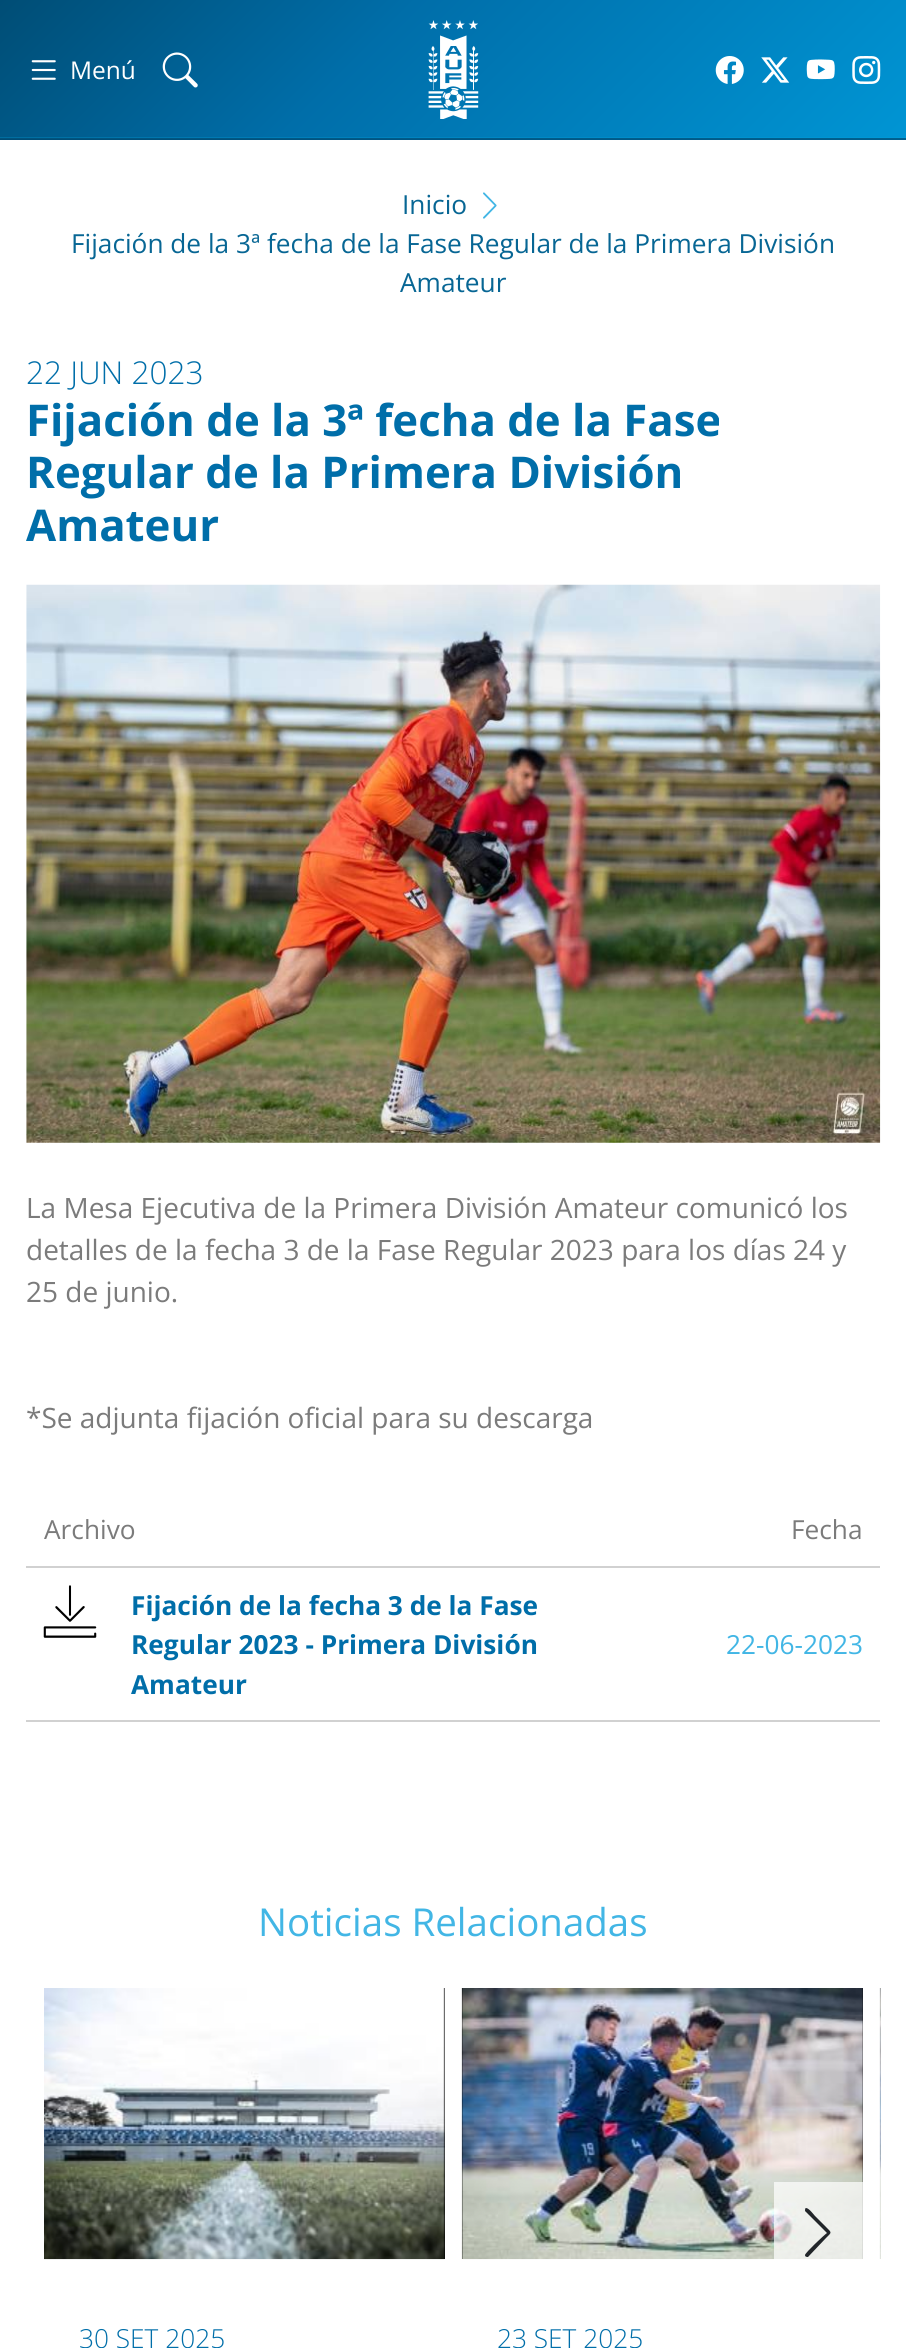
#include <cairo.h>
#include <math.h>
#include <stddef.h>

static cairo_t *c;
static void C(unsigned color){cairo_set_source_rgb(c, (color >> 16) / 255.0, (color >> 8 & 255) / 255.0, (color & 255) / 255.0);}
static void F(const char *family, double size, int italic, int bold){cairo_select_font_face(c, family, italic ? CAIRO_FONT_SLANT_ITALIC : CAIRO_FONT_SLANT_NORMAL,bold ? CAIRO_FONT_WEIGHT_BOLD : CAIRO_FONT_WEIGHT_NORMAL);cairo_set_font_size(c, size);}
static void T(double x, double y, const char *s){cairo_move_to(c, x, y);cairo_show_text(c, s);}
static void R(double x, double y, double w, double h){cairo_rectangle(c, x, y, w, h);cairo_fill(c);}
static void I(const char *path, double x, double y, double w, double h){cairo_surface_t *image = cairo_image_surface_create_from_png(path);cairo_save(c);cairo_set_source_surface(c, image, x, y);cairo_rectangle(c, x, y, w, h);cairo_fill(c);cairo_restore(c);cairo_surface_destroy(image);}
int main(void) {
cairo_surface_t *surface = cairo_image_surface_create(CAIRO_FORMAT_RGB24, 906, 2348);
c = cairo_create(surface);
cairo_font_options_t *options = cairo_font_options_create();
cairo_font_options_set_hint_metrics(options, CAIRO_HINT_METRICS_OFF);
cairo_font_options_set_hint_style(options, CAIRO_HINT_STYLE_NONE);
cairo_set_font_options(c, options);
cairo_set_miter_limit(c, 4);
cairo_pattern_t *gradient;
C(0xffffff);
cairo_paint(c);
gradient = cairo_pattern_create_linear(192,-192,714,330);
cairo_pattern_add_color_stop_rgba(gradient,0,0,0.302,0.459,1);
cairo_pattern_add_color_stop_rgba(gradient,.4,0,0.431,0.663,1);
cairo_pattern_add_color_stop_rgba(gradient,1,0,0.584,0.831,1);
cairo_set_source(c,gradient);
cairo_pattern_destroy(gradient);
R(0,0,906,137);
gradient = cairo_pattern_create_linear(192,-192,714,330);
cairo_pattern_add_color_stop_rgba(gradient,0,0,0.396,0.576,1);
cairo_pattern_add_color_stop_rgba(gradient,.4,0,0.49,0.722,1);
cairo_pattern_add_color_stop_rgba(gradient,1,0,0.6,0.843,1);
cairo_set_source(c,gradient);
cairo_pattern_destroy(gradient);
R(0,137,906,1);
gradient = cairo_pattern_create_linear(192,-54,714,469);
cairo_pattern_add_color_stop_rgba(gradient,0,0,0.298,0.459,1);
cairo_pattern_add_color_stop_rgba(gradient,.4,0,0.337,0.518,1);
cairo_pattern_add_color_stop_rgba(gradient,1,0,0.376,0.565,1);
cairo_set_source(c,gradient);
cairo_pattern_destroy(gradient);
R(0,139,906,1);
gradient = cairo_pattern_create_linear(192,-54,714,469);
cairo_pattern_add_color_stop_rgba(gradient,0,0,0.325,0.49,1);
cairo_pattern_add_color_stop_rgba(gradient,.4,0,0.353,0.533,1);
cairo_pattern_add_color_stop_rgba(gradient,1,0,0.384,0.565,1);
cairo_set_source(c,gradient);
cairo_pattern_destroy(gradient);
R(0,138,906,1);
I("1.png",31,60,25,20);
F("Open Sans",24.5,0,0);
C(0xffffff);
T(70,79,"Menú");
I("2.png",162,52,36,36);
I("3.png",428,20,51,99);
I("4.png",715,56,29,28);
I("5.png",761,57,29,26);
I("6.png",806,59,29,21);
I("7.png",852,56,29,28);
F("Open Sans",26.25,0,0);
C(0x076694);
T(402,214,"Inicio");
I("8.png",483,192,14,27);
T(71,253,"Fijación de la 3ª fecha de la Fase Regular de la Primera División");
T(400,292,"Amateur");
F("Open Sans Light",31.5,0,0);
C(0x006ea9);
T(26,384,"22 JUN 2023");
F("Open Sans",43.75,0,1);
T(26,436,"Fijación de la 3ª fecha de la Fase");
T(26,488,"Regular de la Primera División");
T(26,541,"Amateur");
I("9.png",26,584,855,559);
F("Open Sans",28,0,0);
C(0x7b7b7b);
T(26,1218,"La Mesa Ejecutiva de la Primera División Amateur comunicó los");
T(26,1260,"detalles de la fecha 3 de la Fase Regular 2023 para los días 24 y");
T(26,1302,"25 de junio.");
T(26,1428,"*Se adjunta fijación oficial para su descarga");
C(0xd1d1d1);
R(26,1566,854,2);
F("Open Sans",26.25,0,0);
C(0x7b7b7b);
T(44,1539,"Archivo");
T(791,1539,"Fecha");
C(0xd1d1d1);
R(26,1720,854,2);
I("10.png",43,1585,54,53);
F("Open Sans",26.25,0,1);
C(0x006ea9);
T(131,1615,"Fijación de la fecha 3 de la Fase");
T(131,1654,"Regular 2023 - Primera División");
T(131,1694,"Amateur");
F("Open Sans",26.25,0,0);
C(0x42b6e5);
T(726,1654,"22-06-2023");
F("Open Sans",38.5,0,0);
T(258,1936,"Noticias Relacionadas");
C(0x000000);
R(443,1988,2,271);
I("12.png",44,1988,401,272);
cairo_set_source_rgba(c,1,1,1,0.03);
R(44,2182,89,77);
cairo_set_source_rgba(c,0.129,0.145,0.161,0.05);
cairo_new_path(c);
cairo_move_to(c,76,2234);
cairo_line_to(c,75,2233);
cairo_curve_to(c,75,2230,85,2222,87,2220);
cairo_line_to(c,94,2212);
cairo_curve_to(c,97,2210,100,2206,101,2209);
cairo_curve_to(c,101,2211,97,2214,97,2215);
cairo_line_to(c,79,2233);
cairo_line_to(c,97,2251);
cairo_curve_to(c,98,2251,103,2255,100,2257);
cairo_curve_to(c,98,2259,93,2251,90,2249);
cairo_close_path(c);
cairo_fill(c);
C(0x000000);
R(462,1988,401,271);
I("13.png",461,1988,402,272);
cairo_set_source_rgba(c,1,1,1,0.7);
R(774,2182,89,78);
C(0x212529);
cairo_new_path(c);
cairo_move_to(c,808,2257);
cairo_curve_to(c,807,2257,805,2257,805,2255);
cairo_curve_to(c,805,2253,824,2235,827,2233);
cairo_line_to(c,805,2211);
cairo_curve_to(c,805,2210,805,2208,806,2208);
cairo_curve_to(c,809,2208,814,2215,815,2216);
cairo_line_to(c,826,2227);
cairo_curve_to(c,832,2233,832,2232,826,2238);
cairo_close_path(c);
cairo_fill(c);
I("11.png",879,1988,2,271);
F("Open Sans Light",26.25,0,0);
C(0x006ea9);
T(79,2348,"30 SET 2025");
T(497,2348,"23 SET 2025");
cairo_surface_write_to_png(surface, "o.png");
cairo_font_options_destroy(options);
cairo_destroy(c);
cairo_surface_destroy(surface);
return 0;
}
